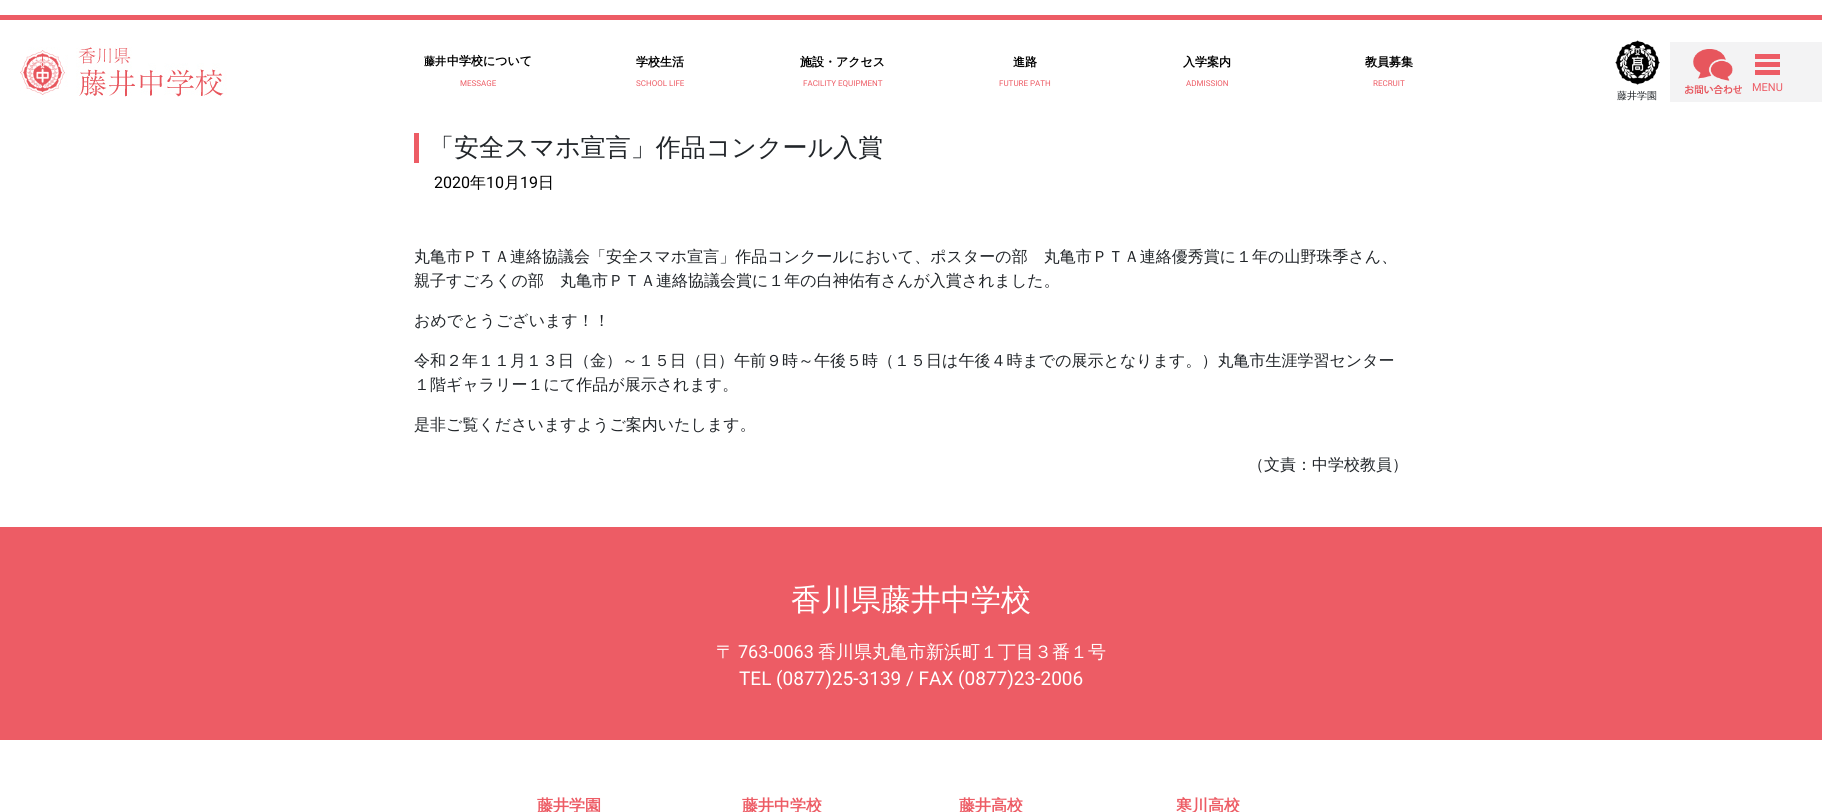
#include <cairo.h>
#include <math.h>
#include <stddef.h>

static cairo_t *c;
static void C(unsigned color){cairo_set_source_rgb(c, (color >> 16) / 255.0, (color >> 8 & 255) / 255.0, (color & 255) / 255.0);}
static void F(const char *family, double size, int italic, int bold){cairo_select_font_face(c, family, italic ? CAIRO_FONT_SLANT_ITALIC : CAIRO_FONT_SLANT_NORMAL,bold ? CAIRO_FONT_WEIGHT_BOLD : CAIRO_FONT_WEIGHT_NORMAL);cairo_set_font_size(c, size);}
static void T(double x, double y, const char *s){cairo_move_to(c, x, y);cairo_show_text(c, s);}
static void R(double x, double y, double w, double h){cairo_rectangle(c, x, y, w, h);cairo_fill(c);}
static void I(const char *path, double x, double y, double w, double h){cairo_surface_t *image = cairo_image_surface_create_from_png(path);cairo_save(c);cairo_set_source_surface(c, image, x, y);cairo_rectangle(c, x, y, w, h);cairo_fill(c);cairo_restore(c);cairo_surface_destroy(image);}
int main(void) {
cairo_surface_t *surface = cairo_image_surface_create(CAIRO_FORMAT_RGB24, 1822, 812);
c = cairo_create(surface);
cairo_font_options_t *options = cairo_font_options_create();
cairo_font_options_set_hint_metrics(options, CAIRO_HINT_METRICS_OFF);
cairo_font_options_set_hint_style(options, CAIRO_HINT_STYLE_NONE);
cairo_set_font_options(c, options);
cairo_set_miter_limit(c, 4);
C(0xffffff);
cairo_paint(c);
C(0xed5c65);
R(0,15,1822,5);
I("1.png",20,47,207,50);
F("WenQuanYi Zen Hei",11,0,1);
C(0x000000);
T(424,65,"藤井");
F("WenQuanYi Zen Hei",12,0,1);
T(447,65,"中学校について");
F("Roboto",8,0,0);
C(0xed5c65);
T(460,86,"MESSAGE");
F("WenQuanYi Zen Hei",12,0,1);
C(0x000000);
T(636,66,"学校生活");
F("Roboto",8,0,0);
C(0xed5c65);
T(636,86,"SCHOOL LIFE");
F("WenQuanYi Zen Hei",12,0,1);
C(0x000000);
T(800,66,"施設・アクセス");
F("Roboto",8,0,0);
C(0xed5c65);
T(803,86,"FACILITY EQUIPMENT");
F("WenQuanYi Zen Hei",12,0,1);
C(0x000000);
T(1013,66,"進路");
F("Roboto",8,0,0);
C(0xed5c65);
T(999,86,"FUTURE PATH");
F("WenQuanYi Zen Hei",12,0,1);
C(0x000000);
T(1183,66,"入学案内");
F("Roboto",8,0,0);
C(0xed5c65);
T(1186,86,"ADMISSION");
F("WenQuanYi Zen Hei",12,0,1);
C(0x000000);
T(1365,66,"教員募集");
F("Roboto",8,0,0);
C(0xed5c65);
T(1373,86,"RECRUIT");
C(0xf3f3f4);
R(1670,42,152,60);
I("2.png",1685,49,57,45);
C(0xed5c65);
R(1755,54,25,5);
R(1755,62,25,5);
R(1755,70,25,5);
F("Roboto",11,0,0);
T(1752,91,"MENU");
I("3.png",1615,40,45,45);
F("WenQuanYi Zen Hei Medium",10,0,0);
C(0x212529);
T(1617,99,"藤井学園");
C(0xed5c65);
R(414,133,5,30);
F("WenQuanYi Zen Hei Medium",25,0,0);
C(0x212529);
T(429,156,"「安全スマホ宣言」作品コンクール入賞");
F("Roboto",16,0,0);
C(0x000000);
T(434,188,"2020");
F("WenQuanYi Zen Hei Medium",16,0,0);
T(470,188,"年");
F("Roboto",16,0,0);
T(486,188,"10");
F("WenQuanYi Zen Hei Medium",16,0,0);
T(504,188,"月");
F("Roboto",16,0,0);
T(520,188,"19");
F("WenQuanYi Zen Hei Medium",16,0,0);
T(538,188,"日");
C(0x212529);
T(414,262,"丸亀市ＰＴＡ連絡協議会「安全スマホ宣言」作品コンクールにおいて、ポスターの部　丸亀市ＰＴＡ連絡優秀賞に１年の山野珠季さん、");
T(414,286,"親子すごろくの部　丸亀市ＰＴＡ連絡協議会賞に１年の白神佑有さんが入賞されました。");
T(414,326,"おめでとうございます！！");
T(414,366,"令和２年１１月１３日（金）～１５日（日）午前９時～午後５時（１５日は午後４時までの展示となります。）丸亀市生涯学習センター");
T(414,390,"１階ギャラリー１にて作品が展示されます。");
T(414,430,"是非ご覧くださいますようご案内いたします。");
T(1248,470,"（文責：中学校教員）");
C(0xed5c65);
R(0,527,1822,213);
F("WenQuanYi Zen Hei Medium",30,0,0);
C(0xffffff);
T(791,610,"香川県藤井中学校");
F("WenQuanYi Zen Hei Medium",18,0,0);
T(716,658,"〒");
F("Roboto",18,0,0);
T(738,658,"763-0063");
F("WenQuanYi Zen Hei Medium",18,0,0);
T(818,658,"香川県丸亀市新浜町１丁目３番１号");
F("Roboto",19,0,0);
T(739,685,"TEL (0877)25-3139 / FAX (0877)23-2006");
F("WenQuanYi Zen Hei",16,0,1);
C(0xed5c65);
T(537,811,"藤井学園");
T(742,811,"藤井中学校");
T(959,811,"藤井高校");
T(1176,811,"寒川高校");
cairo_surface_write_to_png(surface, "o.png");
cairo_font_options_destroy(options);
cairo_destroy(c);
cairo_surface_destroy(surface);
return 0;
}
